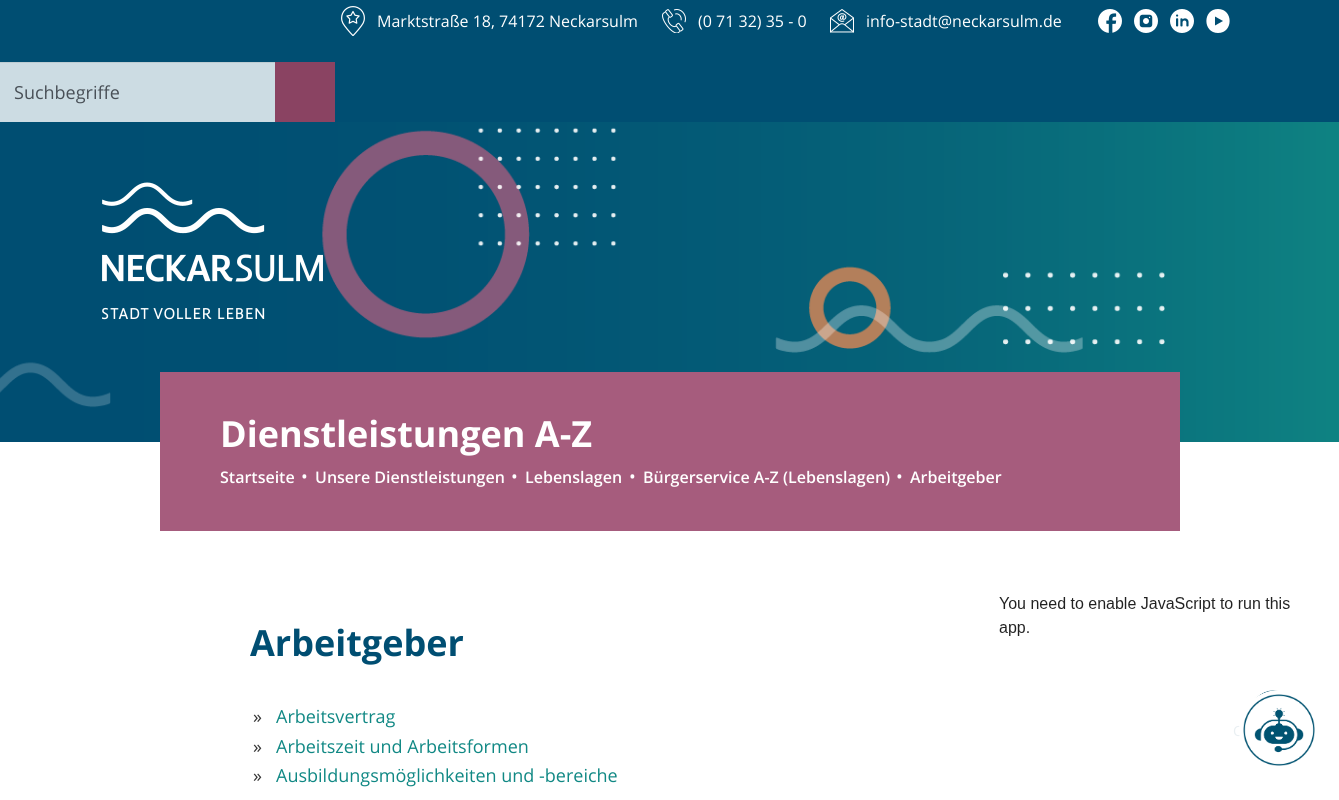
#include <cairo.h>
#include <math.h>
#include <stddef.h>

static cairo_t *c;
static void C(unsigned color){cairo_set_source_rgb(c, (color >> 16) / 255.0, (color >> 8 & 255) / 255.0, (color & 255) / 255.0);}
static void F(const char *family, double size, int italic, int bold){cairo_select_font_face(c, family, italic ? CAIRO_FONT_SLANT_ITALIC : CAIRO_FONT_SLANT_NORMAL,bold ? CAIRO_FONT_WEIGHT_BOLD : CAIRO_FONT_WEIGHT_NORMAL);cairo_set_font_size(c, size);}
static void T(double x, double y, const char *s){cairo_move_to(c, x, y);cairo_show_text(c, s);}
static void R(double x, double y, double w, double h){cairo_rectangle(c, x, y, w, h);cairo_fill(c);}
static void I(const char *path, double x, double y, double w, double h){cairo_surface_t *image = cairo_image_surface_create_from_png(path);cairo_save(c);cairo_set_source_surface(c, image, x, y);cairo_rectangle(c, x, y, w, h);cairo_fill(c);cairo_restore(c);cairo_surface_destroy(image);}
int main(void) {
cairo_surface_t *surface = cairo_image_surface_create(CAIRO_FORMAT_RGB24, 1339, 800);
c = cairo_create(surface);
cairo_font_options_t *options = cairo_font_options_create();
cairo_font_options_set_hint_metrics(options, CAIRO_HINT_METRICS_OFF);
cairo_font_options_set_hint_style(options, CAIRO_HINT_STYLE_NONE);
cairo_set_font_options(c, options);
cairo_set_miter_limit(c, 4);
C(0xffffff);
cairo_paint(c);
C(0x004e72);
R(0,0,1339,122);
I("1.png",341,6,24,30);
F("Open Sans",16,0,0);
C(0xffffff);
T(377,27,"Marktstraße 18, 74172 Neckarsulm");
I("2.png",662,9,24,24);
T(698,27,"(0 71 32) 35 - 0");
I("3.png",830,9,24,24);
T(866,27,"info-stadt@neckarsulm.de");
I("4.png",1098,9,24,24);
I("5.png",1134,9,24,24);
I("6.png",1170,9,24,24);
cairo_new_path(c);
cairo_move_to(c,1218,9);
cairo_curve_to(c,1202.5,9,1202.5,33,1218,33);
cairo_curve_to(c,1233.5,33,1233.5,9,1218,9);
cairo_close_path(c);
cairo_move_to(c,1215,25.5);
cairo_line_to(c,1215,16.5);
cairo_line_to(c,1223,21);
cairo_close_path(c);
cairo_fill(c);
C(0xccdce3);
R(0,63,275,59);
C(0xbdccd2);
R(0,62,275,1);
F("Open Sans",18,0,0);
C(0x495057);
T(14,99,"Suchbegriffe");
C(0x8a4362);
R(275,62,60,60);
I("7.png",0,122,1339,320);
I("8.png",102,182,221,138);
C(0xa65c7d);
R(160,372,1020,159);
F("Open Sans",36,0,1);
C(0xffffff);
T(220,447,"Dienstleistungen A-Z");
F("Open Sans SemiBold",16,0,0);
T(220,483,"Startseite");
F("Open Sans",18,0,0);
T(301,483,"•");
F("Open Sans SemiBold",16,0,0);
T(315,483,"Unsere Dienstleistungen");
F("Open Sans",18,0,0);
T(511,483,"•");
F("Open Sans SemiBold",16,0,0);
T(525,483,"Lebenslagen");
F("Open Sans",18,0,0);
T(629,483,"•");
F("Open Sans SemiBold",16,0,0);
T(643,483,"Bürgerservice A-Z (Lebenslagen)");
F("Open Sans",18,0,0);
T(896,483,"•");
F("Open Sans SemiBold",16,0,0);
T(910,483,"Arbeitgeber");
F("Open Sans",36,0,1);
C(0x004e72);
T(250,656,"Arbeitgeber");
F("Open Sans",18,0,0);
C(0x333333);
T(253,723,"»");
C(0x108884);
T(276,723,"Arbeitsvertrag");
C(0x333333);
T(253,753,"»");
C(0x108884);
T(276,753,"Arbeitszeit und Arbeitsformen");
C(0x333333);
T(253,782,"»");
C(0x108884);
T(276,782,"Ausbildungsmöglichkeiten und -bereiche");
I("9.png",999,597,291,101);
F("Open Sans",14,0,0);
C(0xe9eff2);
T(1233,736,"C");
C(0xffffff);
cairo_new_path(c);
cairo_arc(c,1279,730,40,0,2 * M_PI);
cairo_fill(c);
I("10.png",1243,694,72,72);
cairo_surface_write_to_png(surface, "o.png");
cairo_font_options_destroy(options);
cairo_destroy(c);
cairo_surface_destroy(surface);
return 0;
}
